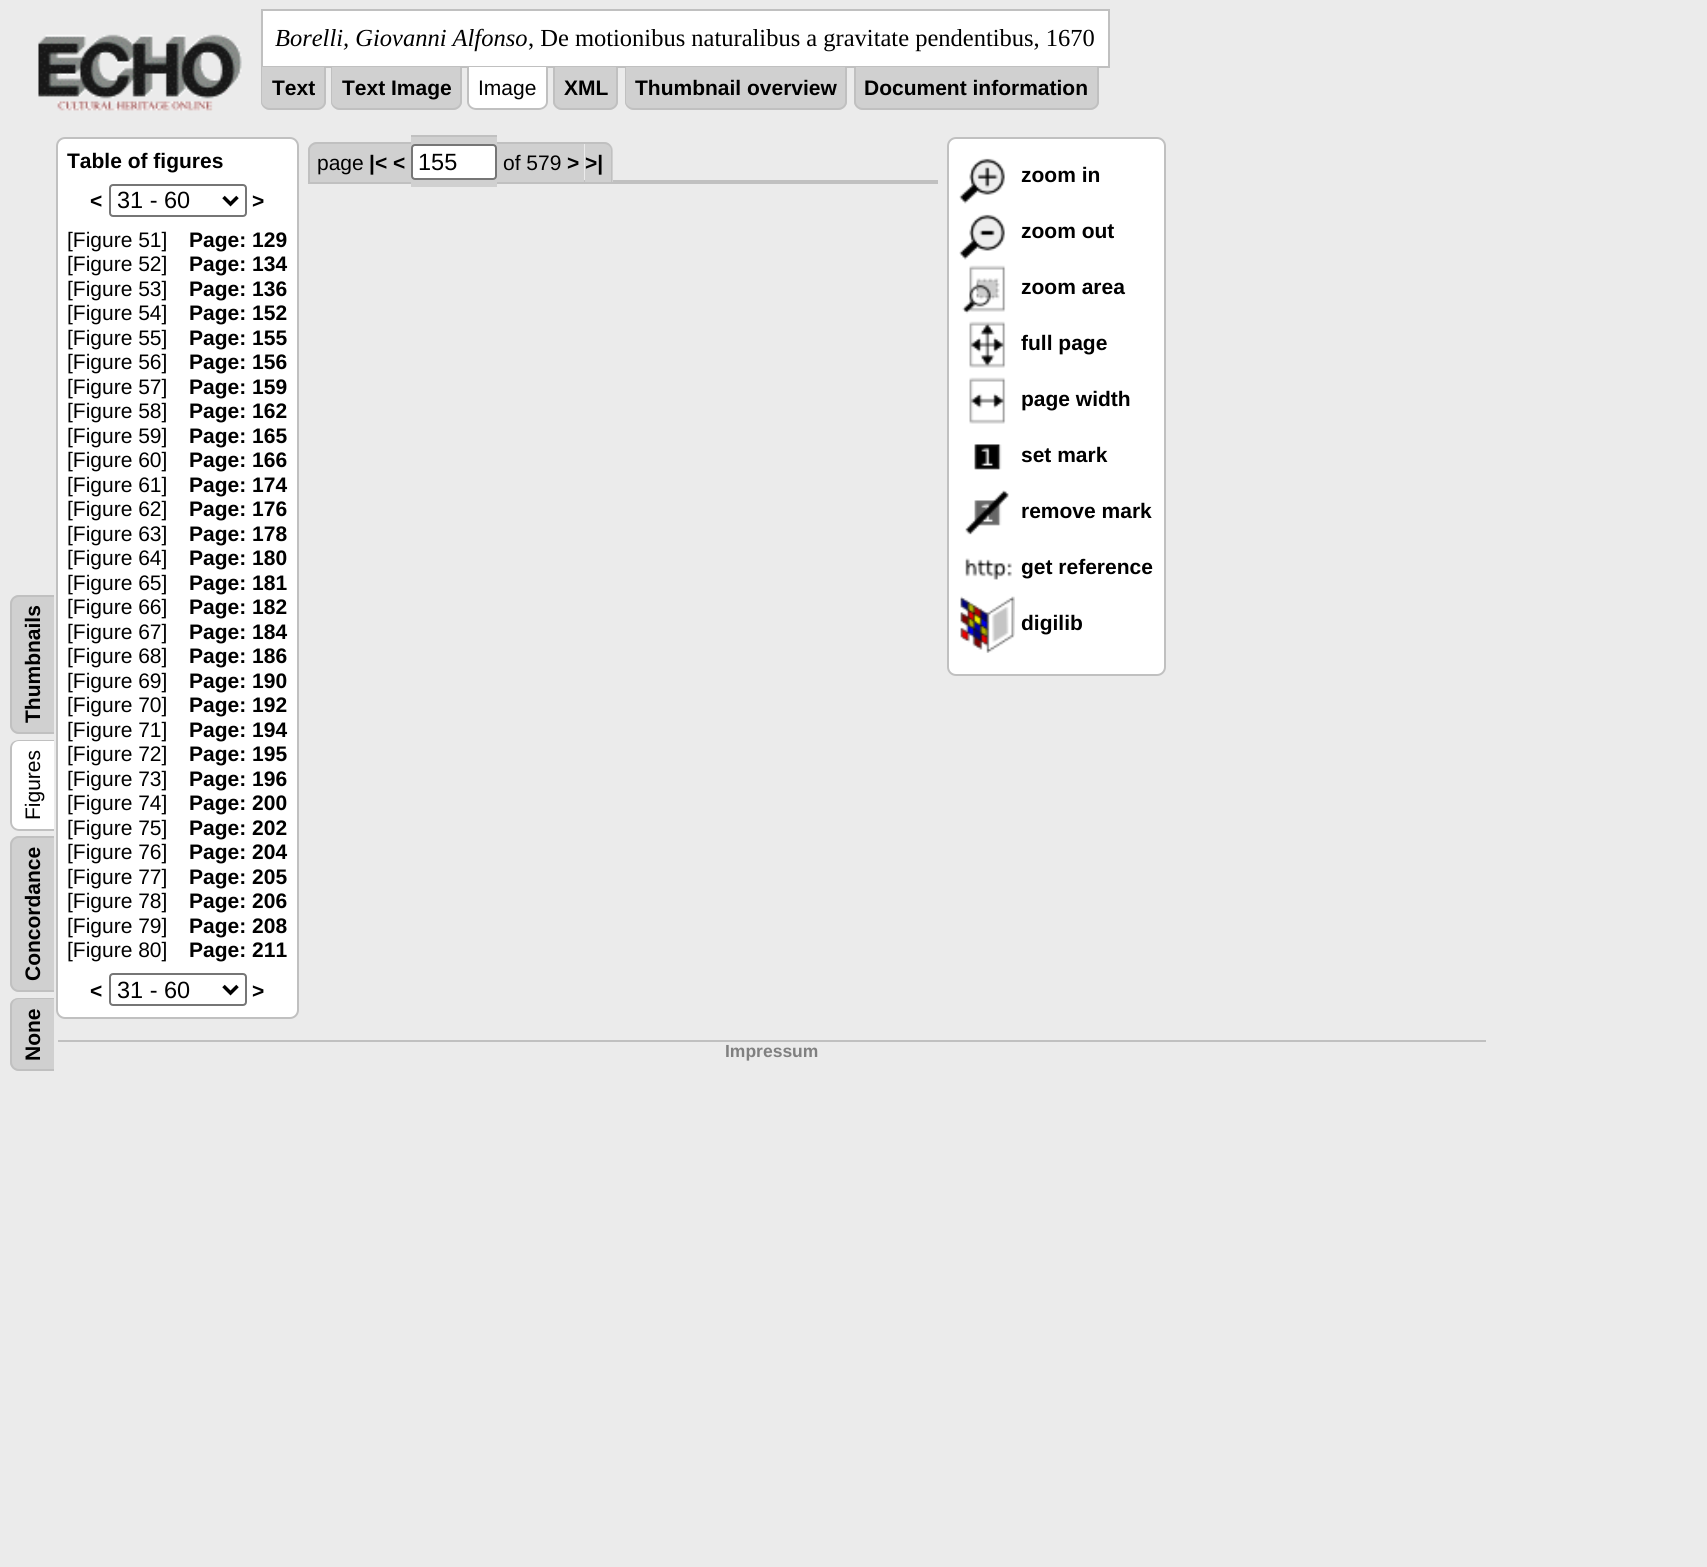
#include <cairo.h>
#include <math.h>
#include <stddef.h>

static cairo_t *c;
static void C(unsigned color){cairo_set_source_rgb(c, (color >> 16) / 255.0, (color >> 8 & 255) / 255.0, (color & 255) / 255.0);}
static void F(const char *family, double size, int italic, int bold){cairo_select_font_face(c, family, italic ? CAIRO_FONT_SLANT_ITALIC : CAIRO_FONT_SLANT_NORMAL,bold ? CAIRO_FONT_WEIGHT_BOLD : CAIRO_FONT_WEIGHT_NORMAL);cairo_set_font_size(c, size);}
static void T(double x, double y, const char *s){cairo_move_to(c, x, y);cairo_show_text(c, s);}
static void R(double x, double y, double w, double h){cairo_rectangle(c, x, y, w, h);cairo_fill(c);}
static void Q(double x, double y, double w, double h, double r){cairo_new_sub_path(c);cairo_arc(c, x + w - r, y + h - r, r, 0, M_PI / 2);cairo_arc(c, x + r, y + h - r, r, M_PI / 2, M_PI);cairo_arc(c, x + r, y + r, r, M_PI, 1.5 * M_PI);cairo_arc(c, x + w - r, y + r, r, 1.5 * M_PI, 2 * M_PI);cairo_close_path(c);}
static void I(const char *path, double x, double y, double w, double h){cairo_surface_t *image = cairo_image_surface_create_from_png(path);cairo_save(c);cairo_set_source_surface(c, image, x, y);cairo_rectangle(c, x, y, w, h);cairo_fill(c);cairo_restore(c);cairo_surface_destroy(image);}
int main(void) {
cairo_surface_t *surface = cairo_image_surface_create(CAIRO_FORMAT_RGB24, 1707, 1567);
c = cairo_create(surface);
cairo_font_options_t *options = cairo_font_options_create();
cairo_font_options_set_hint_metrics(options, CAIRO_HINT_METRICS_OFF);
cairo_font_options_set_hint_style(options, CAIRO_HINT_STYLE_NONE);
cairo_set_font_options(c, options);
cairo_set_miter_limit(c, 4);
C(0xebebeb);
cairo_paint(c);
I("1.png",38,34,204,77);
C(0xffffff);
cairo_rectangle(c,262,10,847,57);
cairo_fill_preserve(c);
C(0xc0c0c0);
cairo_stroke(c);
F("Liberation Serif",24.5,1,0);
C(0x000000);
T(275,46,"Borelli, Giovanni Alfonso");
F("Liberation Serif",24.5,0,0);
T(528,46,", De motionibus naturalibus a gravitate pendentibus, 1670");
C(0xd0d0d0);
cairo_new_path(c);
cairo_move_to(c,261,67);
cairo_line_to(c,326,67);
cairo_line_to(c,326,101);
cairo_curve_to(c,326,106,322,110,317,110);
cairo_line_to(c,270,110);
cairo_curve_to(c,265,110,261,106,261,101);
cairo_close_path(c);
cairo_fill(c);
C(0xc0c0c0);
cairo_set_fill_rule(c,CAIRO_FILL_RULE_EVEN_ODD);
cairo_new_path(c);
cairo_move_to(c,261,66);
cairo_line_to(c,326,66);
cairo_line_to(c,326,102);
cairo_curve_to(c,326,106,322,110,317,110);
cairo_line_to(c,270,110);
cairo_curve_to(c,265,110,261,106,261,102);
cairo_close_path(c);
cairo_move_to(c,262,66);
cairo_line_to(c,324,66);
cairo_line_to(c,324,102);
cairo_curve_to(c,324,105,321,108,317,108);
cairo_line_to(c,270,108);
cairo_curve_to(c,266,108,262,105,262,102);
cairo_close_path(c);
cairo_fill(c);
F("Liberation Sans",21,0,1);
C(0x000000);
T(272,95,"Text");
C(0xd0d0d0);
cairo_new_path(c);
cairo_move_to(c,331,67);
cairo_line_to(c,462,67);
cairo_line_to(c,462,101);
cairo_curve_to(c,462,106,458,110,453,110);
cairo_line_to(c,340,110);
cairo_curve_to(c,335,110,331,106,331,101);
cairo_close_path(c);
cairo_fill(c);
C(0xc0c0c0);
cairo_new_path(c);
cairo_move_to(c,331,66);
cairo_line_to(c,462,66);
cairo_line_to(c,462,102);
cairo_curve_to(c,462,106,458,110,453,110);
cairo_line_to(c,340,110);
cairo_curve_to(c,335,110,331,106,331,102);
cairo_close_path(c);
cairo_move_to(c,332,66);
cairo_line_to(c,460,66);
cairo_line_to(c,460,102);
cairo_curve_to(c,460,105,457,108,453,108);
cairo_line_to(c,340,108);
cairo_curve_to(c,336,108,332,105,332,102);
cairo_close_path(c);
cairo_fill(c);
C(0x000000);
T(342,95,"Text Image");
C(0xffffff);
cairo_new_path(c);
cairo_move_to(c,467,67);
cairo_line_to(c,548,67);
cairo_line_to(c,548,101);
cairo_curve_to(c,548,106,544,110,539,110);
cairo_line_to(c,476,110);
cairo_curve_to(c,471,110,467,106,467,101);
cairo_close_path(c);
cairo_fill(c);
C(0xc0c0c0);
cairo_new_path(c);
cairo_move_to(c,467,66);
cairo_line_to(c,548,66);
cairo_line_to(c,548,102);
cairo_curve_to(c,548,106,544,110,539,110);
cairo_line_to(c,476,110);
cairo_curve_to(c,471,110,467,106,467,102);
cairo_close_path(c);
cairo_move_to(c,469,66);
cairo_line_to(c,546,66);
cairo_line_to(c,546,102);
cairo_curve_to(c,546,105,543,108,539,108);
cairo_line_to(c,476,108);
cairo_curve_to(c,472,108,469,105,469,102);
cairo_close_path(c);
cairo_fill(c);
F("Liberation Sans",21,0,0);
C(0x000000);
T(478,95,"Image");
C(0xd0d0d0);
cairo_new_path(c);
cairo_move_to(c,553,67);
cairo_line_to(c,618,67);
cairo_line_to(c,618,101);
cairo_curve_to(c,618,106,614,110,609,110);
cairo_line_to(c,562,110);
cairo_curve_to(c,557,110,553,106,553,101);
cairo_close_path(c);
cairo_fill(c);
C(0xc0c0c0);
cairo_new_path(c);
cairo_move_to(c,553,66);
cairo_line_to(c,618,66);
cairo_line_to(c,618,102);
cairo_curve_to(c,618,106,614,110,609,110);
cairo_line_to(c,562,110);
cairo_curve_to(c,557,110,553,106,553,102);
cairo_close_path(c);
cairo_move_to(c,555,66);
cairo_line_to(c,616,66);
cairo_line_to(c,616,102);
cairo_curve_to(c,616,105,613,108,609,108);
cairo_line_to(c,562,108);
cairo_curve_to(c,558,108,555,105,555,102);
cairo_close_path(c);
cairo_fill(c);
F("Liberation Sans",21,0,1);
C(0x000000);
T(564,95,"XML");
C(0xd0d0d0);
cairo_new_path(c);
cairo_move_to(c,625,67);
cairo_line_to(c,847,67);
cairo_line_to(c,847,101);
cairo_curve_to(c,847,106,843,110,838,110);
cairo_line_to(c,634,110);
cairo_curve_to(c,629,110,625,106,625,101);
cairo_close_path(c);
cairo_fill(c);
C(0xc0c0c0);
cairo_new_path(c);
cairo_move_to(c,625,66);
cairo_line_to(c,847,66);
cairo_line_to(c,847,102);
cairo_curve_to(c,847,106,843,110,838,110);
cairo_line_to(c,634,110);
cairo_curve_to(c,629,110,625,106,625,102);
cairo_close_path(c);
cairo_move_to(c,626,66);
cairo_line_to(c,845,66);
cairo_line_to(c,845,102);
cairo_curve_to(c,845,105,842,108,838,108);
cairo_line_to(c,634,108);
cairo_curve_to(c,630,108,626,105,626,102);
cairo_close_path(c);
cairo_fill(c);
C(0x000000);
T(635,95,"Thumbnail overview");
C(0xd0d0d0);
cairo_new_path(c);
cairo_move_to(c,854,67);
cairo_line_to(c,1099,67);
cairo_line_to(c,1099,101);
cairo_curve_to(c,1099,106,1095,110,1090,110);
cairo_line_to(c,863,110);
cairo_curve_to(c,858,110,854,106,854,101);
cairo_close_path(c);
cairo_fill(c);
C(0xc0c0c0);
cairo_new_path(c);
cairo_move_to(c,854,66);
cairo_line_to(c,1099,66);
cairo_line_to(c,1099,102);
cairo_curve_to(c,1099,106,1095,110,1090,110);
cairo_line_to(c,863,110);
cairo_curve_to(c,858,110,854,106,854,102);
cairo_close_path(c);
cairo_move_to(c,856,66);
cairo_line_to(c,1097,66);
cairo_line_to(c,1097,102);
cairo_curve_to(c,1097,105,1094,108,1090,108);
cairo_line_to(c,863,108);
cairo_curve_to(c,859,108,856,105,856,102);
cairo_close_path(c);
cairo_fill(c);
C(0x000000);
T(864,95,"Document information");
C(0xd0d0d0);
cairo_set_fill_rule(c,CAIRO_FILL_RULE_WINDING);
cairo_new_path(c);
cairo_move_to(c,10,725);
cairo_line_to(c,10,604);
cairo_curve_to(c,10,599,14,595,19,595);
cairo_line_to(c,54,595);
cairo_line_to(c,54,734);
cairo_line_to(c,19,734);
cairo_curve_to(c,14,734,10,730,10,725);
cairo_close_path(c);
cairo_fill(c);
C(0xc0c0c0);
cairo_set_fill_rule(c,CAIRO_FILL_RULE_EVEN_ODD);
cairo_new_path(c);
cairo_move_to(c,10,725);
cairo_line_to(c,10,604);
cairo_curve_to(c,10,599,14,595,19,595);
cairo_line_to(c,54,595);
cairo_line_to(c,54,734);
cairo_line_to(c,19,734);
cairo_curve_to(c,14,734,10,730,10,725);
cairo_close_path(c);
cairo_move_to(c,12,725);
cairo_line_to(c,12,604);
cairo_curve_to(c,12,600,15,597,19,597);
cairo_line_to(c,54,597);
cairo_line_to(c,54,732);
cairo_line_to(c,19,732);
cairo_curve_to(c,15,732,12,729,12,725);
cairo_close_path(c);
cairo_fill(c);
C(0x000000);
cairo_save(c);
cairo_translate(c,40,723);
cairo_rotate(c,-90 * M_PI / 180);
T(0,0,"Thumbnails");
cairo_restore(c);
C(0xffffff);
cairo_set_fill_rule(c,CAIRO_FILL_RULE_WINDING);
cairo_new_path(c);
cairo_move_to(c,10,822);
cairo_line_to(c,10,748);
cairo_curve_to(c,10,743,14,740,19,740);
cairo_line_to(c,54,740);
cairo_line_to(c,54,831);
cairo_line_to(c,19,831);
cairo_curve_to(c,14,831,10,827,10,822);
cairo_close_path(c);
cairo_fill(c);
C(0xc0c0c0);
cairo_set_fill_rule(c,CAIRO_FILL_RULE_EVEN_ODD);
cairo_new_path(c);
cairo_move_to(c,10,822);
cairo_line_to(c,10,748);
cairo_curve_to(c,10,743,14,740,19,740);
cairo_line_to(c,54,740);
cairo_line_to(c,54,831);
cairo_line_to(c,19,831);
cairo_curve_to(c,14,831,10,827,10,822);
cairo_close_path(c);
cairo_move_to(c,12,822);
cairo_line_to(c,12,748);
cairo_curve_to(c,12,744,15,741,19,741);
cairo_line_to(c,54,741);
cairo_line_to(c,54,829);
cairo_line_to(c,19,829);
cairo_curve_to(c,15,829,12,826,12,822);
cairo_close_path(c);
cairo_fill(c);
F("Liberation Sans",21,0,0);
C(0x000000);
cairo_save(c);
cairo_translate(c,40,820);
cairo_rotate(c,-90 * M_PI / 180);
T(0,0,"Figures");
cairo_restore(c);
C(0xd0d0d0);
cairo_set_fill_rule(c,CAIRO_FILL_RULE_WINDING);
cairo_new_path(c);
cairo_move_to(c,10,983);
cairo_line_to(c,10,845);
cairo_curve_to(c,10,840,14,836,19,836);
cairo_line_to(c,54,836);
cairo_line_to(c,54,992);
cairo_line_to(c,19,992);
cairo_curve_to(c,14,992,10,988,10,983);
cairo_close_path(c);
cairo_fill(c);
C(0xc0c0c0);
cairo_set_fill_rule(c,CAIRO_FILL_RULE_EVEN_ODD);
cairo_new_path(c);
cairo_move_to(c,10,983);
cairo_line_to(c,10,845);
cairo_curve_to(c,10,840,14,836,19,836);
cairo_line_to(c,54,836);
cairo_line_to(c,54,992);
cairo_line_to(c,19,992);
cairo_curve_to(c,14,992,10,988,10,983);
cairo_close_path(c);
cairo_move_to(c,12,983);
cairo_line_to(c,12,845);
cairo_curve_to(c,12,841,15,838,19,838);
cairo_line_to(c,54,838);
cairo_line_to(c,54,990);
cairo_line_to(c,19,990);
cairo_curve_to(c,15,990,12,987,12,983);
cairo_close_path(c);
cairo_fill(c);
F("Liberation Sans",21,0,1);
C(0x000000);
cairo_save(c);
cairo_translate(c,40,981);
cairo_rotate(c,-90 * M_PI / 180);
T(0,0,"Concordance");
cairo_restore(c);
C(0xd0d0d0);
cairo_set_fill_rule(c,CAIRO_FILL_RULE_WINDING);
cairo_new_path(c);
cairo_move_to(c,10,1062);
cairo_line_to(c,10,1006);
cairo_curve_to(c,10,1001,14,998,19,998);
cairo_line_to(c,54,998);
cairo_line_to(c,54,1071);
cairo_line_to(c,19,1071);
cairo_curve_to(c,14,1071,10,1067,10,1062);
cairo_close_path(c);
cairo_fill(c);
C(0xc0c0c0);
cairo_set_fill_rule(c,CAIRO_FILL_RULE_EVEN_ODD);
cairo_new_path(c);
cairo_move_to(c,10,1062);
cairo_line_to(c,10,1006);
cairo_curve_to(c,10,1001,14,998,19,998);
cairo_line_to(c,54,998);
cairo_line_to(c,54,1071);
cairo_line_to(c,19,1071);
cairo_curve_to(c,14,1071,10,1067,10,1062);
cairo_close_path(c);
cairo_move_to(c,12,1062);
cairo_line_to(c,12,1006);
cairo_curve_to(c,12,1002,15,999,19,999);
cairo_line_to(c,54,999);
cairo_line_to(c,54,1069);
cairo_line_to(c,19,1069);
cairo_curve_to(c,15,1069,12,1066,12,1062);
cairo_close_path(c);
cairo_fill(c);
C(0x000000);
cairo_save(c);
cairo_translate(c,40,1061);
cairo_rotate(c,-90 * M_PI / 180);
T(0,0,"None");
cairo_restore(c);
C(0xffffff);
Q(57,138,241,880,8);
cairo_fill_preserve(c);
C(0xc0c0c0);
cairo_stroke(c);
C(0x000000);
T(67,168,"Table of figures");
T(90,208,"<");
Q(110,185,136,31,3);
C(0x767676);
cairo_stroke(c);
cairo_new_path(c);
cairo_move_to(c,223.5,197);
cairo_line_to(c,230.5,204);
cairo_line_to(c,237.5,197);
C(0x000000);
cairo_set_line_width(c,3.5);
cairo_stroke(c);
F("Liberation Sans",23.5,0,0);
T(117,208,"31 - 60");
F("Liberation Sans",21,0,1);
T(252,208,">");
F("Liberation Sans",21,0,0);
T(67,247,"[Figure 51]");
F("Liberation Sans",21,0,1);
T(189,247,"Page: 129");
F("Liberation Sans",21,0,0);
T(67,271,"[Figure 52]");
F("Liberation Sans",21,0,1);
T(189,271,"Page: 134");
F("Liberation Sans",21,0,0);
T(67,296,"[Figure 53]");
F("Liberation Sans",21,0,1);
T(189,296,"Page: 136");
F("Liberation Sans",21,0,0);
T(67,320,"[Figure 54]");
F("Liberation Sans",21,0,1);
T(189,320,"Page: 152");
F("Liberation Sans",21,0,0);
T(67,345,"[Figure 55]");
F("Liberation Sans",21,0,1);
T(189,345,"Page: 155");
F("Liberation Sans",21,0,0);
T(67,369,"[Figure 56]");
F("Liberation Sans",21,0,1);
T(189,369,"Page: 156");
F("Liberation Sans",21,0,0);
T(67,394,"[Figure 57]");
F("Liberation Sans",21,0,1);
T(189,394,"Page: 159");
F("Liberation Sans",21,0,0);
T(67,418,"[Figure 58]");
F("Liberation Sans",21,0,1);
T(189,418,"Page: 162");
F("Liberation Sans",21,0,0);
T(67,443,"[Figure 59]");
F("Liberation Sans",21,0,1);
T(189,443,"Page: 165");
F("Liberation Sans",21,0,0);
T(67,467,"[Figure 60]");
F("Liberation Sans",21,0,1);
T(189,467,"Page: 166");
F("Liberation Sans",21,0,0);
T(67,492,"[Figure 61]");
F("Liberation Sans",21,0,1);
T(189,492,"Page: 174");
F("Liberation Sans",21,0,0);
T(67,516,"[Figure 62]");
F("Liberation Sans",21,0,1);
T(189,516,"Page: 176");
F("Liberation Sans",21,0,0);
T(67,541,"[Figure 63]");
F("Liberation Sans",21,0,1);
T(189,541,"Page: 178");
F("Liberation Sans",21,0,0);
T(67,565,"[Figure 64]");
F("Liberation Sans",21,0,1);
T(189,565,"Page: 180");
F("Liberation Sans",21,0,0);
T(67,590,"[Figure 65]");
F("Liberation Sans",21,0,1);
T(189,590,"Page: 181");
F("Liberation Sans",21,0,0);
T(67,614,"[Figure 66]");
F("Liberation Sans",21,0,1);
T(189,614,"Page: 182");
F("Liberation Sans",21,0,0);
T(67,639,"[Figure 67]");
F("Liberation Sans",21,0,1);
T(189,639,"Page: 184");
F("Liberation Sans",21,0,0);
T(67,663,"[Figure 68]");
F("Liberation Sans",21,0,1);
T(189,663,"Page: 186");
F("Liberation Sans",21,0,0);
T(67,688,"[Figure 69]");
F("Liberation Sans",21,0,1);
T(189,688,"Page: 190");
F("Liberation Sans",21,0,0);
T(67,712,"[Figure 70]");
F("Liberation Sans",21,0,1);
T(189,712,"Page: 192");
F("Liberation Sans",21,0,0);
T(67,737,"[Figure 71]");
F("Liberation Sans",21,0,1);
T(189,737,"Page: 194");
F("Liberation Sans",21,0,0);
T(67,761,"[Figure 72]");
F("Liberation Sans",21,0,1);
T(189,761,"Page: 195");
F("Liberation Sans",21,0,0);
T(67,786,"[Figure 73]");
F("Liberation Sans",21,0,1);
T(189,786,"Page: 196");
F("Liberation Sans",21,0,0);
T(67,810,"[Figure 74]");
F("Liberation Sans",21,0,1);
T(189,810,"Page: 200");
F("Liberation Sans",21,0,0);
T(67,835,"[Figure 75]");
F("Liberation Sans",21,0,1);
T(189,835,"Page: 202");
F("Liberation Sans",21,0,0);
T(67,859,"[Figure 76]");
F("Liberation Sans",21,0,1);
T(189,859,"Page: 204");
F("Liberation Sans",21,0,0);
T(67,884,"[Figure 77]");
F("Liberation Sans",21,0,1);
T(189,884,"Page: 205");
F("Liberation Sans",21,0,0);
T(67,908,"[Figure 78]");
F("Liberation Sans",21,0,1);
T(189,908,"Page: 206");
F("Liberation Sans",21,0,0);
T(67,933,"[Figure 79]");
F("Liberation Sans",21,0,1);
T(189,933,"Page: 208");
F("Liberation Sans",21,0,0);
T(67,957,"[Figure 80]");
F("Liberation Sans",21,0,1);
T(189,957,"Page: 211");
T(90,998,"<");
Q(110,974,136,31,3);
C(0x767676);
cairo_set_line_width(c,2);
cairo_stroke(c);
cairo_new_path(c);
cairo_move_to(c,223.5,986);
cairo_line_to(c,230.5,993);
cairo_line_to(c,237.5,986);
C(0x000000);
cairo_set_line_width(c,3.5);
cairo_stroke(c);
F("Liberation Sans",23.5,0,0);
T(117,998,"31 - 60");
F("Liberation Sans",21,0,1);
T(252,998,">");
C(0xc0c0c0);
R(308,180,630,4);
C(0xd0d0d0);
cairo_new_path(c);
cairo_move_to(c,317,142);
cairo_line_to(c,369,142);
cairo_line_to(c,369,182);
cairo_line_to(c,308,182);
cairo_line_to(c,308,151);
cairo_curve_to(c,308,146,312,142,317,142);
cairo_close_path(c);
cairo_fill(c);
C(0xc0c0c0);
cairo_new_path(c);
cairo_move_to(c,317,142);
cairo_line_to(c,369,142);
cairo_line_to(c,369,182);
cairo_line_to(c,308,182);
cairo_line_to(c,308,150);
cairo_curve_to(c,308,146,312,142,317,142);
cairo_close_path(c);
cairo_move_to(c,317,144);
cairo_line_to(c,369,144);
cairo_line_to(c,369,182);
cairo_line_to(c,310,182);
cairo_line_to(c,310,150);
cairo_curve_to(c,310,147,313,144,317,144);
cairo_close_path(c);
cairo_fill(c);
C(0xd0d0d0);
R(369,144,18,38);
C(0xc0c0c0);
R(369,142,18,2);
C(0xd0d0d0);
R(387,142,7,40);
C(0xc0c0c0);
R(387,142,19,2);
C(0xd0d0d0);
R(394,144,12,38);
R(406,142,5,40);
C(0xc0c0c0);
R(406,142,5,2);
C(0xd0d0d0);
R(411,137,86,50);
C(0xc0c0c0);
R(411,135,86,2);
C(0xd0d0d0);
R(497,142,5,40);
C(0xc0c0c0);
R(497,142,82,2);
C(0xd0d0d0);
R(502,144,77,38);
R(579,142,5,40);
C(0xc0c0c0);
R(579,142,5,2);
C(0xd0d0d0);
cairo_new_path(c);
cairo_move_to(c,585,142);
cairo_line_to(c,604,142);
cairo_curve_to(c,609,142,613,146,613,151);
cairo_line_to(c,613,182);
cairo_line_to(c,585,182);
cairo_close_path(c);
cairo_fill(c);
C(0xc0c0c0);
cairo_new_path(c);
cairo_move_to(c,584,142);
cairo_line_to(c,604,142);
cairo_curve_to(c,609,142,612,146,612,150);
cairo_line_to(c,612,182);
cairo_line_to(c,584,182);
cairo_close_path(c);
cairo_move_to(c,584,144);
cairo_line_to(c,604,144);
cairo_curve_to(c,608,144,611,147,611,150);
cairo_line_to(c,611,182);
cairo_line_to(c,584,182);
cairo_close_path(c);
cairo_fill(c);
F("Liberation Sans",21,0,0);
C(0x000000);
T(317,170,"page");
F("Liberation Sans",21,0,1);
T(369,170,"|< <");
C(0xffffff);
Q(412,145,84,34,3);
cairo_fill_preserve(c);
C(0x767676);
cairo_set_line_width(c,2);
cairo_stroke(c);
F("Liberation Sans",23.5,0,0);
C(0x000000);
T(418,170,"155");
F("Liberation Sans",21,0,0);
T(503,170,"of 579");
F("Liberation Sans",21,0,1);
T(567,170,"> >|");
C(0xffffff);
Q(948,138,217,537,8);
cairo_fill_preserve(c);
C(0xc0c0c0);
cairo_stroke(c);
I("2.png",959,158,46,46);
C(0x000000);
T(1021,182,"zoom in");
I("3.png",959,214,46,46);
T(1021,238,"zoom out");
I("4.png",962,265,44,49);
T(1021,294,"zoom area");
I("5.png",969,321,37,47);
T(1021,350,"full page");
I("6.png",969,377,37,47);
T(1021,406,"page width");
I("7.png",974,444,28,26);
T(1021,462,"set mark");
I("8.png",965,490,44,45);
T(1021,518,"remove mark");
I("9.png",965,558,47,22);
T(1021,574,"get reference");
I("10.png",960,596,55,57);
T(1021,630,"digilib");
C(0xc0c0c0);
R(58,1040,1428,2);
F("Liberation Sans",17.5,0,1);
C(0x808080);
T(725,1057,"Impressum");
cairo_surface_write_to_png(surface, "o.png");
cairo_font_options_destroy(options);
cairo_destroy(c);
cairo_surface_destroy(surface);
return 0;
}
